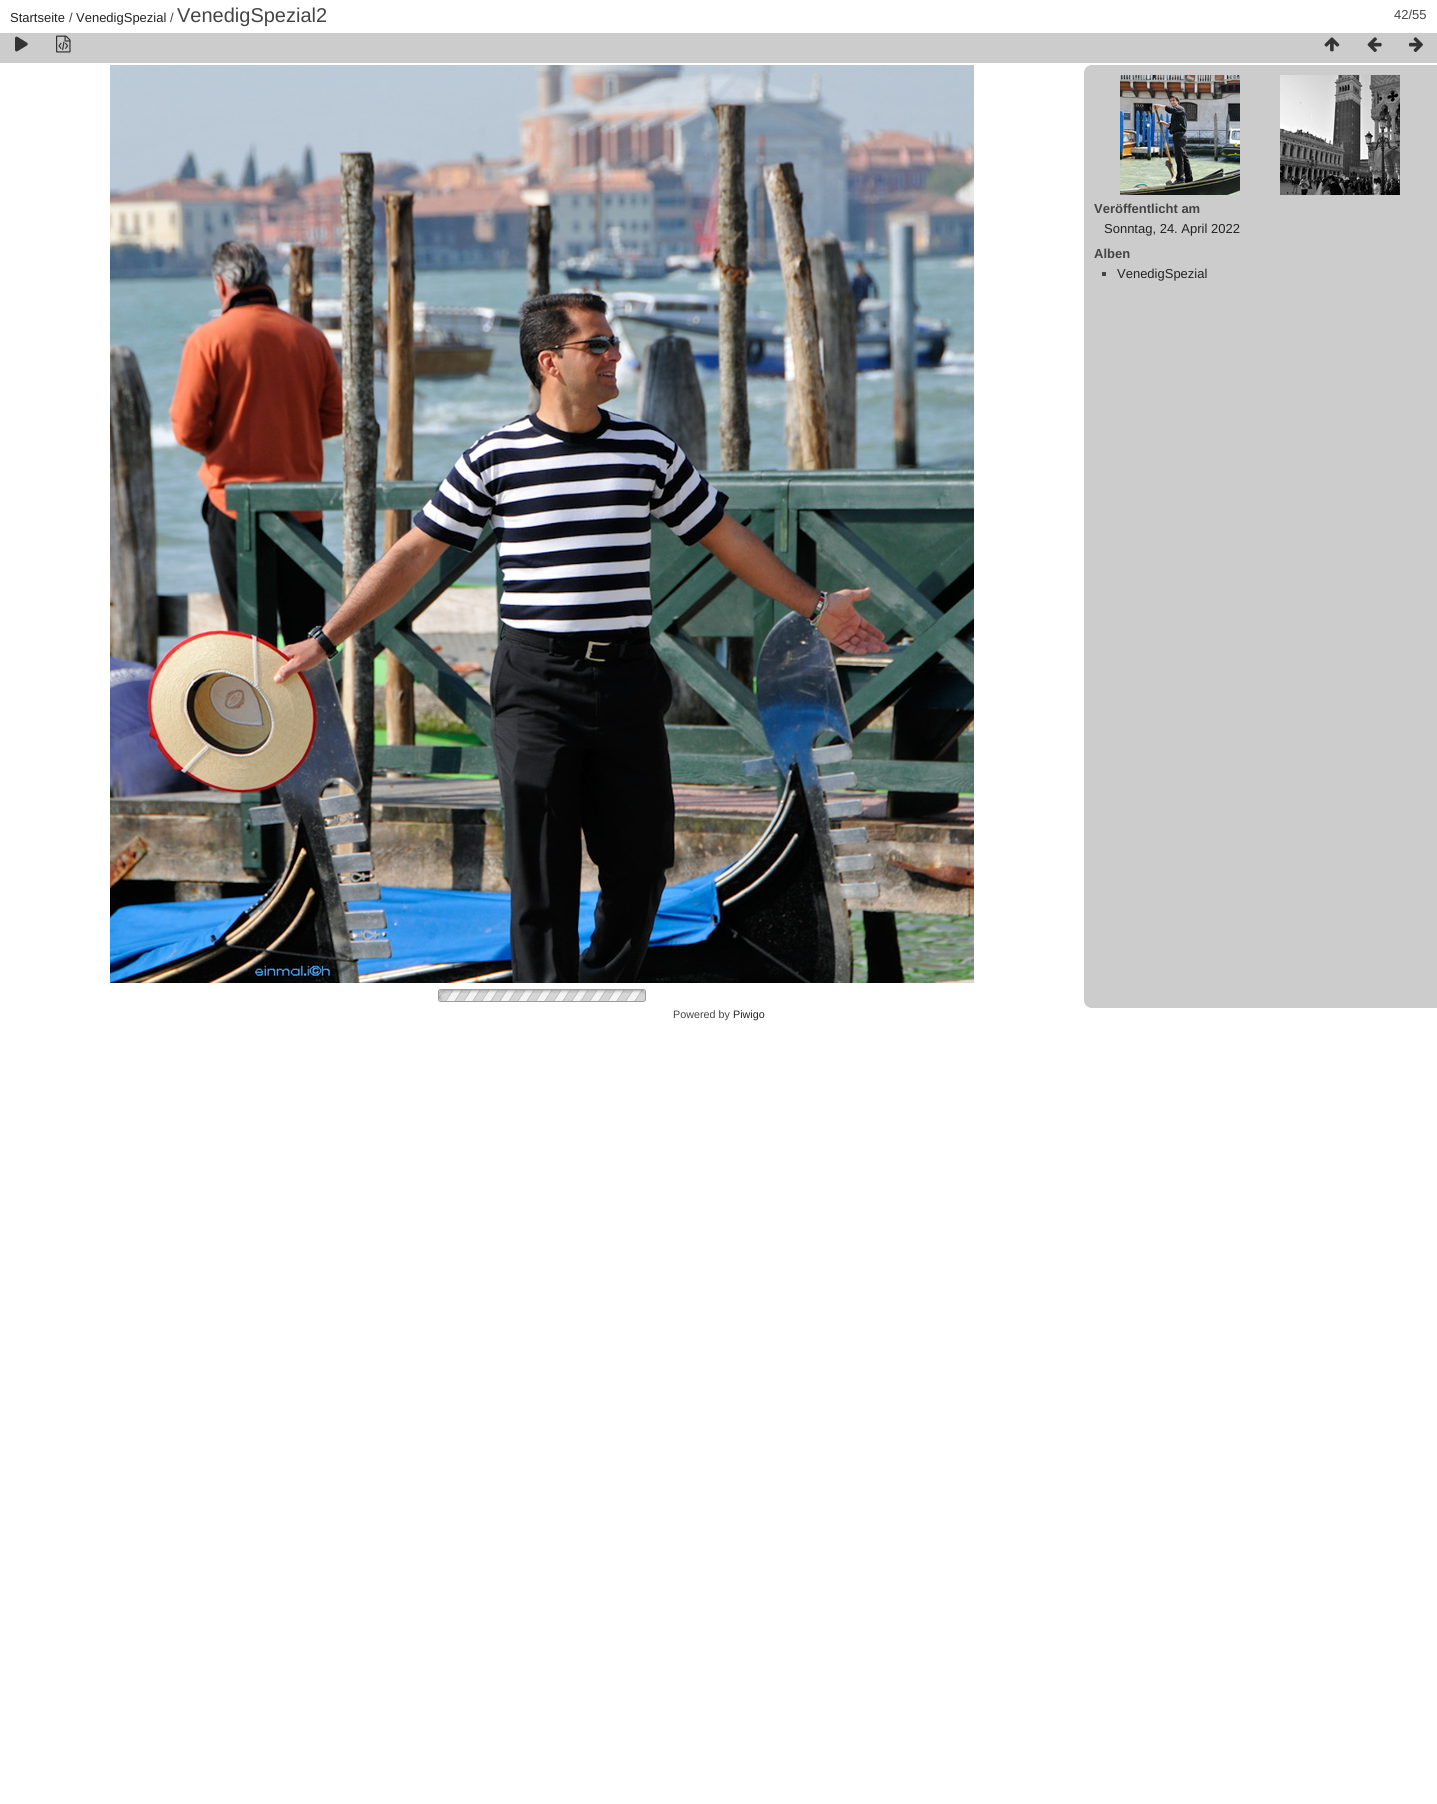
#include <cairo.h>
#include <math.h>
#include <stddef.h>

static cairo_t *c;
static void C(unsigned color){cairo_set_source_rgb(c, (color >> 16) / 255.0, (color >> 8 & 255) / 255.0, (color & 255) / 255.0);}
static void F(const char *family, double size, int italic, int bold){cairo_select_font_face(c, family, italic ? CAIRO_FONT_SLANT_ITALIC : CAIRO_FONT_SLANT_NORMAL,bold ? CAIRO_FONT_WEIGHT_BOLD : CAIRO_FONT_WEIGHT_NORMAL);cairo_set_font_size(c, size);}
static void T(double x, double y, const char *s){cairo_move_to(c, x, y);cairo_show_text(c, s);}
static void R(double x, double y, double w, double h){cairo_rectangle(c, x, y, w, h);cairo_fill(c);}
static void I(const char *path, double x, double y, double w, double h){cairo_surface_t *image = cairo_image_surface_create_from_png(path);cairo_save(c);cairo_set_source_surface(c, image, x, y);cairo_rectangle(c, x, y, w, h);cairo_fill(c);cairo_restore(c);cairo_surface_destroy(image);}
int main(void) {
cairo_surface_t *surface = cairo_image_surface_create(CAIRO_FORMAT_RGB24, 1437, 1804);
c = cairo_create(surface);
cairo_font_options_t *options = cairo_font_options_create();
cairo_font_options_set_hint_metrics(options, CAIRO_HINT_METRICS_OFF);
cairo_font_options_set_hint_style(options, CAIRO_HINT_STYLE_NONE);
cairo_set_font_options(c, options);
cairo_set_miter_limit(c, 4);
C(0xffffff);
cairo_paint(c);
F("Liberation Sans",13,0,0);
C(0x222222);
T(10,22,"Startseite");
C(0x444444);
T(69,22,"/");
C(0x222222);
T(76,22,"VenedigSpezial");
C(0x444444);
T(170,22,"/");
F("Liberation Sans",20,0,0);
T(177,22,"VenedigSpezial2");
F("Liberation Sans",13,0,0);
T(1394,19,"42/55");
C(0xcccccc);
R(0,33,1437,30);
I("1.png",15,36,13,16);
I("2.png",56,35,15,18);
I("3.png",1324,37,16,15);
I("4.png",1367,37,15,15);
I("5.png",1409,37,14,15);
I("6.png",110,65,864,918);
I("7.png",438,989,208,13);
cairo_new_path(c);
cairo_move_to(c,1092,65);
cairo_line_to(c,1437,65);
cairo_line_to(c,1437,1008);
cairo_line_to(c,1092,1008);
cairo_curve_to(c,1087.5,1008,1084,1004.5,1084,1000);
cairo_line_to(c,1084,73);
cairo_curve_to(c,1084,68.5,1087.5,65,1092,65);
cairo_close_path(c);
cairo_fill(c);
I("8.png",1120,75,120,120);
I("9.png",1280,75,120,120);
F("Liberation Sans",13,0,1);
C(0x444444);
T(1094,213,"Veröffentlicht am");
F("Liberation Sans",13,0,0);
C(0x222222);
T(1104,233,"Sonntag, 24. April 2022");
F("Liberation Sans",13,0,1);
C(0x444444);
T(1094,258,"Alben");
R(1102,272,4,4);
F("Liberation Sans",13,0,0);
C(0x222222);
T(1117,278,"VenedigSpezial");
F("Liberation Sans",10.75,0,0);
C(0x444444);
T(673,1018,"Powered by");
C(0x222222);
T(733,1018,"Piwigo");
cairo_surface_write_to_png(surface, "o.png");
cairo_font_options_destroy(options);
cairo_destroy(c);
cairo_surface_destroy(surface);
return 0;
}
